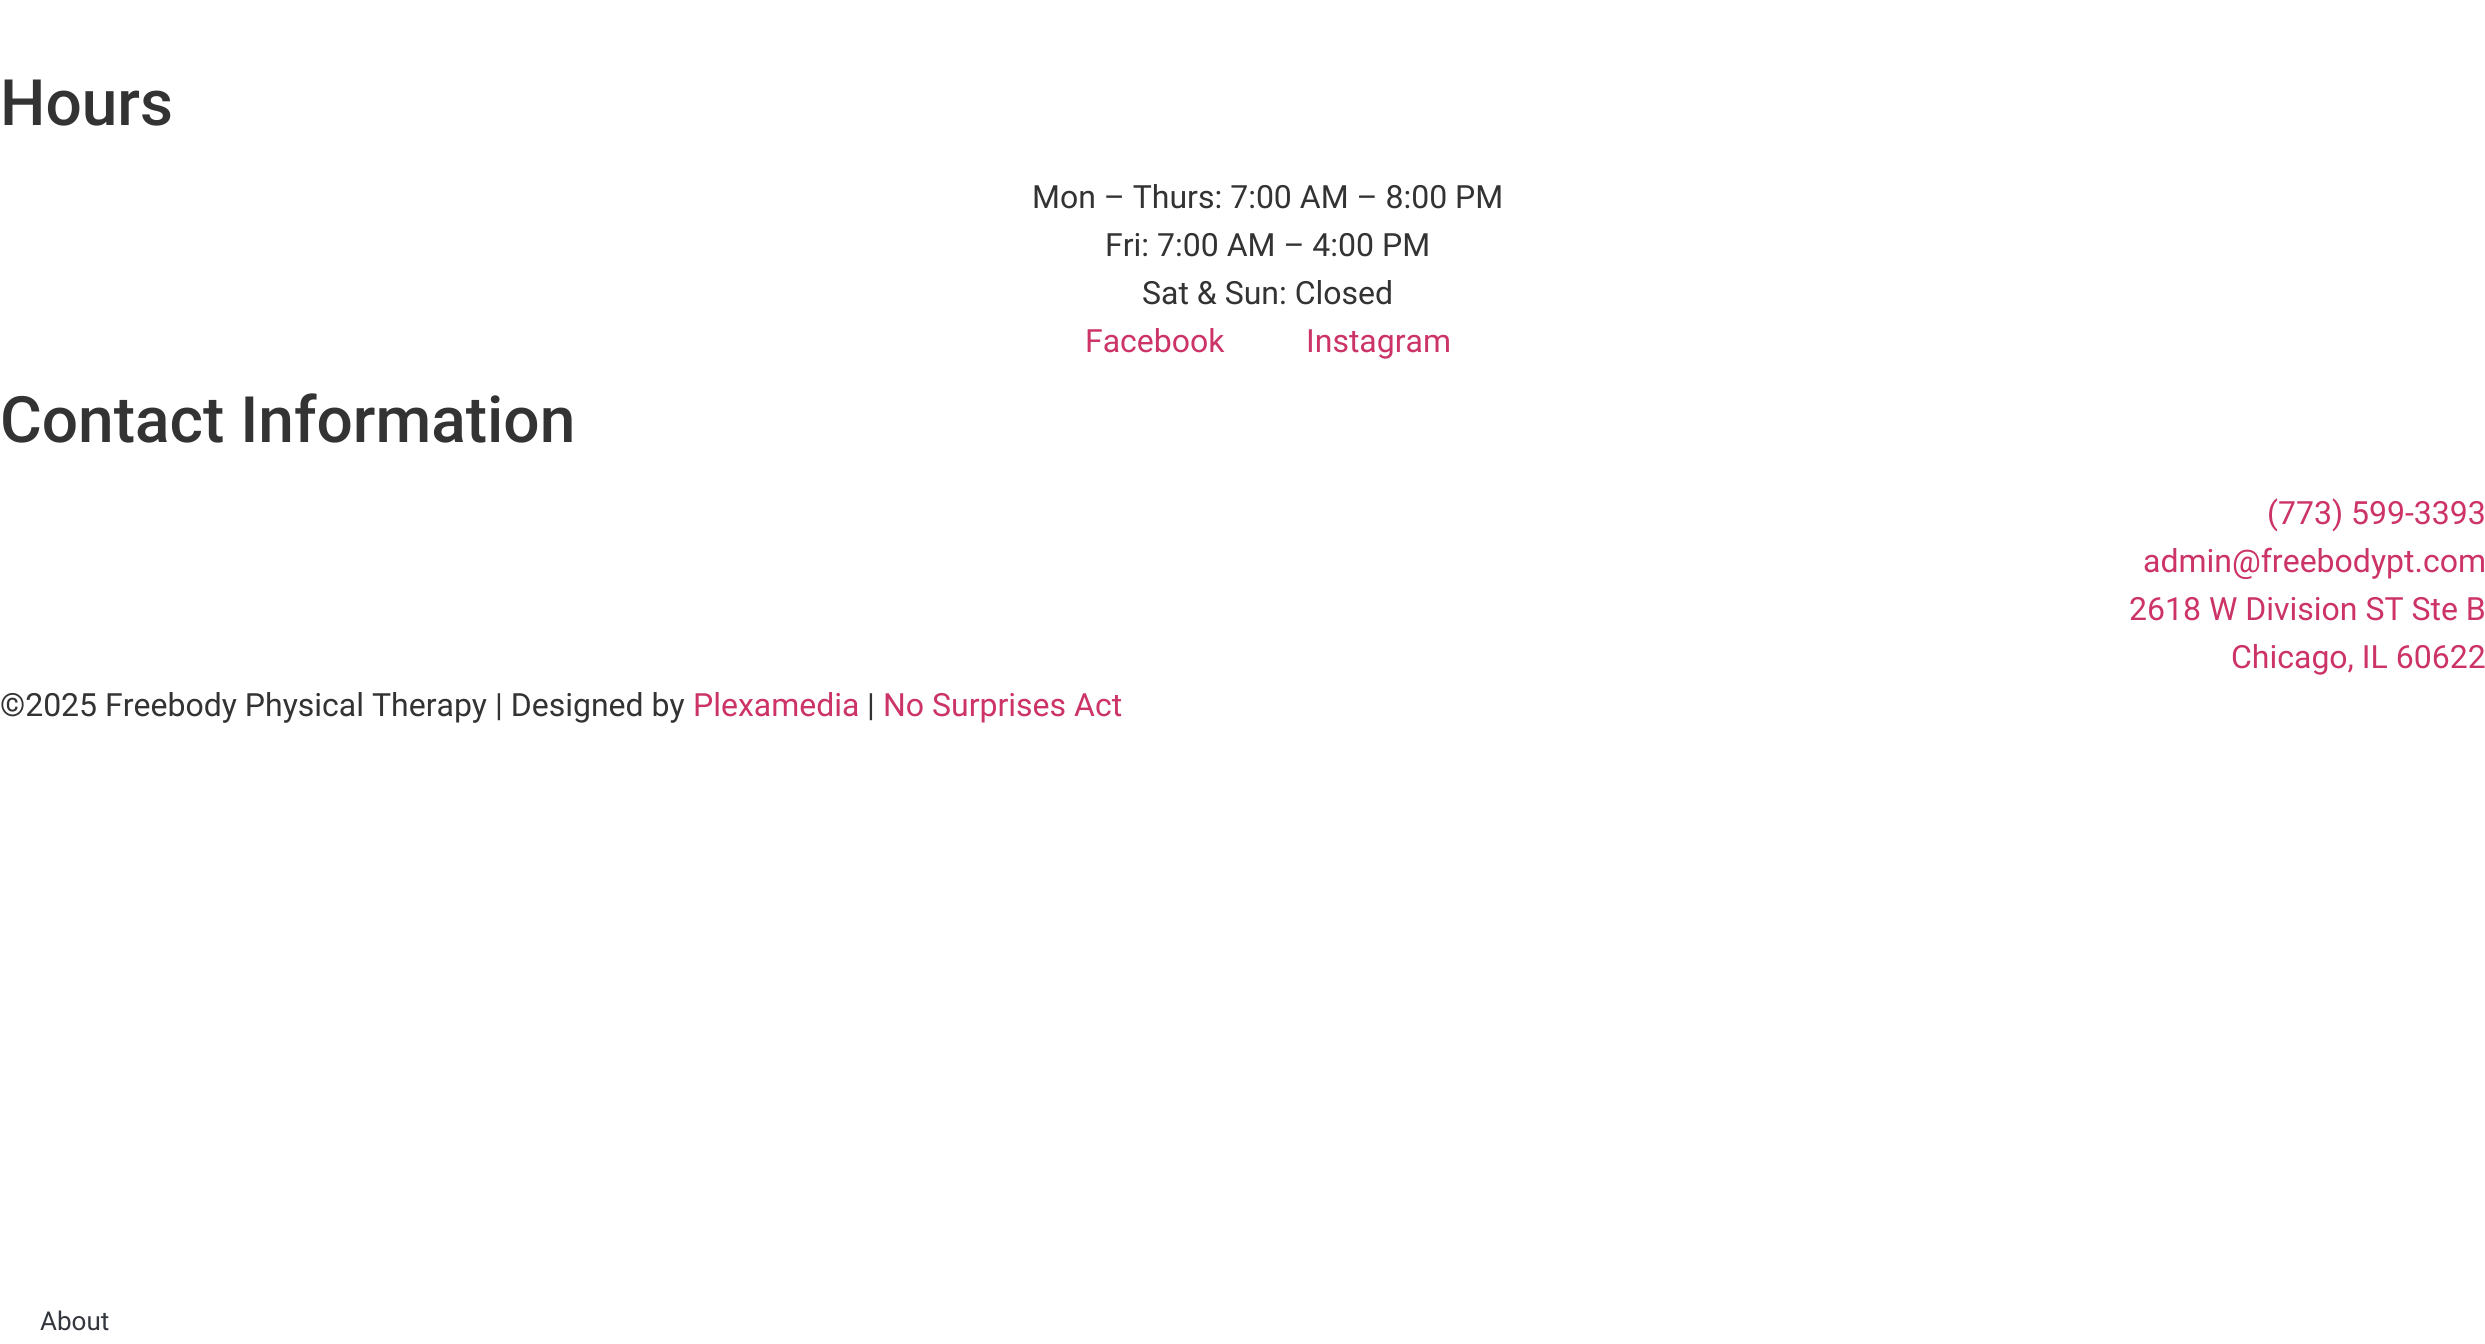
#include <cairo.h>
#include <math.h>
#include <stddef.h>

static cairo_t *c;
static void C(unsigned color){cairo_set_source_rgb(c, (color >> 16) / 255.0, (color >> 8 & 255) / 255.0, (color & 255) / 255.0);}
static void F(const char *family, double size, int italic, int bold){cairo_select_font_face(c, family, italic ? CAIRO_FONT_SLANT_ITALIC : CAIRO_FONT_SLANT_NORMAL,bold ? CAIRO_FONT_WEIGHT_BOLD : CAIRO_FONT_WEIGHT_NORMAL);cairo_set_font_size(c, size);}
static void T(double x, double y, const char *s){cairo_move_to(c, x, y);cairo_show_text(c, s);}
int main(void) {
cairo_surface_t *surface = cairo_image_surface_create(CAIRO_FORMAT_RGB24, 2485, 1344);
c = cairo_create(surface);
cairo_font_options_t *options = cairo_font_options_create();
cairo_font_options_set_hint_metrics(options, CAIRO_HINT_METRICS_OFF);
cairo_font_options_set_hint_style(options, CAIRO_HINT_STYLE_NONE);
cairo_set_font_options(c, options);
cairo_set_miter_limit(c, 4);
C(0xffffff);
cairo_paint(c);
F("Roboto Medium",64,0,0);
C(0x333333);
T(0,125,"Hours");
F("Roboto",32,0,0);
T(1032,208,"Mon – Thurs: 7:00 AM – 8:00 PM");
T(1105,256,"Fri: 7:00 AM – 4:00 PM");
T(1142,304,"Sat & Sun: Closed");
C(0xcc3366);
T(1085,352,"Facebook");
T(1306,352,"Instagram");
F("Roboto Medium",64,0,0);
C(0x333333);
T(0,442,"Contact Information");
F("Roboto",32,0,0);
C(0xcc3366);
T(2267,524,"(773) 599-3393");
T(2143,572,"admin@freebodypt.com");
T(2129,620,"2618 W Division ST Ste B");
T(2231,668,"Chicago, IL 60622");
C(0x333333);
T(0,716,"©2025 Freebody Physical Therapy | Designed by");
C(0xcc3366);
T(693,716,"Plexamedia");
C(0x333333);
T(867,716,"|");
C(0xcc3366);
T(883,716,"No Surprises Act");
F("Roboto",26,0,0);
C(0x33373d);
T(40,1330,"About");
cairo_surface_write_to_png(surface, "o.png");
cairo_font_options_destroy(options);
cairo_destroy(c);
cairo_surface_destroy(surface);
return 0;
}
